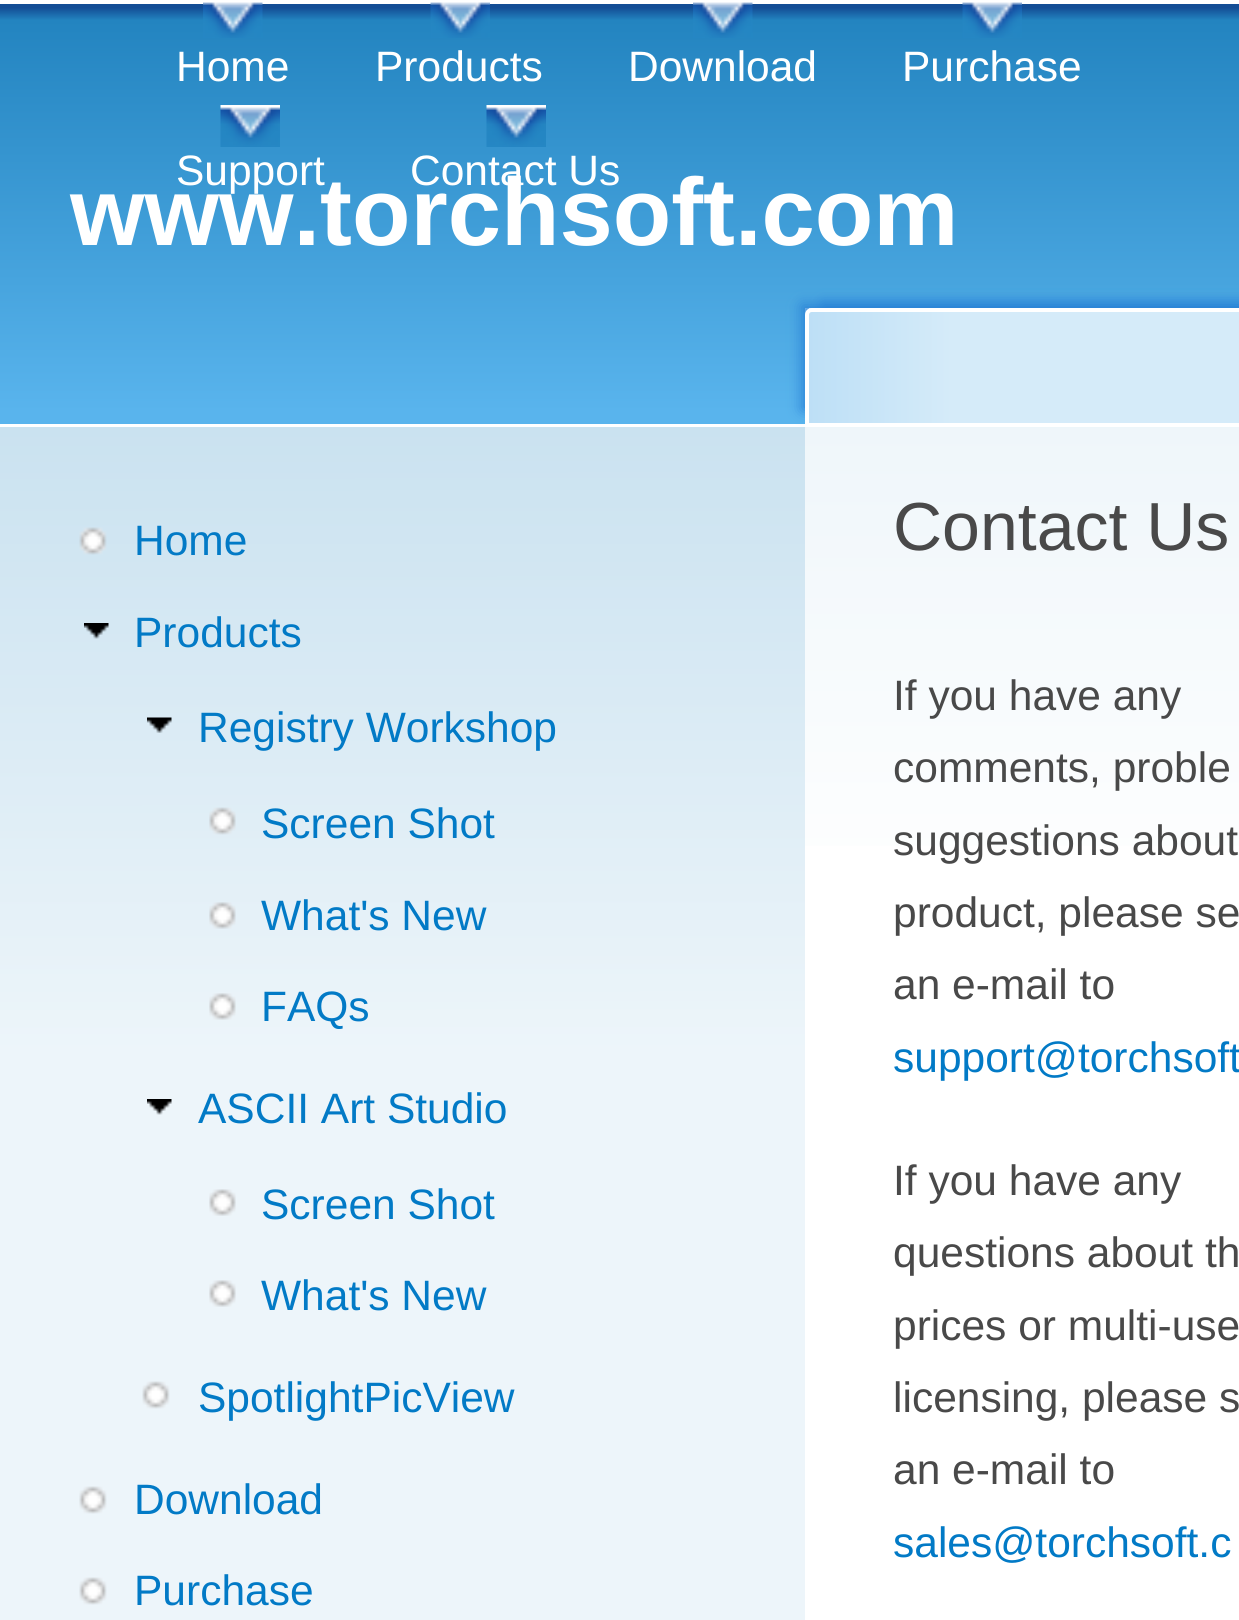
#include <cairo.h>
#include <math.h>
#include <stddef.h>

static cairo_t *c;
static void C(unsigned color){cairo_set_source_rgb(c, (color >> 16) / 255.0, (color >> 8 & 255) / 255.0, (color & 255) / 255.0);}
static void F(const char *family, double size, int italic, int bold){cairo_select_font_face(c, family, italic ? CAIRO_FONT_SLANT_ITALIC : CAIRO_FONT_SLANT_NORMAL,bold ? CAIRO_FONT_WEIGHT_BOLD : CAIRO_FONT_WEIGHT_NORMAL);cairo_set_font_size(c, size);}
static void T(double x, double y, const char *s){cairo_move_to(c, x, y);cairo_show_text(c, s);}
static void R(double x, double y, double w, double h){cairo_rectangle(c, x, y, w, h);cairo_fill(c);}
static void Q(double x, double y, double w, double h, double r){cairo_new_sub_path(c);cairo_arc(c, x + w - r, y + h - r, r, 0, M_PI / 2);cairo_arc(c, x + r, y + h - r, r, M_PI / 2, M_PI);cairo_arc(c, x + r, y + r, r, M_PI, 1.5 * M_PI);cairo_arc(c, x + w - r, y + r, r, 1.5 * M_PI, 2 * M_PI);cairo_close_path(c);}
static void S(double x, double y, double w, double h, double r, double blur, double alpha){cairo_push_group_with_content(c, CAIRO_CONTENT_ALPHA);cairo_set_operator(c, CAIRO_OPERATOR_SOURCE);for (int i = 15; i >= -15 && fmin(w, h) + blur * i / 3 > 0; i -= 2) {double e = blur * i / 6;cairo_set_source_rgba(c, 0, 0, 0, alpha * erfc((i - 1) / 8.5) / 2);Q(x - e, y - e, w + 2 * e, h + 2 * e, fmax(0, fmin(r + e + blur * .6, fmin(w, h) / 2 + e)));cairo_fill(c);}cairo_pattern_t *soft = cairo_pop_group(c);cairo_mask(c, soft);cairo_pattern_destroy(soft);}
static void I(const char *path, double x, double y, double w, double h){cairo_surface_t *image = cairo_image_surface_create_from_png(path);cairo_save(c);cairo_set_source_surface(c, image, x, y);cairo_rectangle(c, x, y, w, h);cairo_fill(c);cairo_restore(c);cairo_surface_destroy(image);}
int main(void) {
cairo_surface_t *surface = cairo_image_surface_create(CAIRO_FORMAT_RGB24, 1239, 1620);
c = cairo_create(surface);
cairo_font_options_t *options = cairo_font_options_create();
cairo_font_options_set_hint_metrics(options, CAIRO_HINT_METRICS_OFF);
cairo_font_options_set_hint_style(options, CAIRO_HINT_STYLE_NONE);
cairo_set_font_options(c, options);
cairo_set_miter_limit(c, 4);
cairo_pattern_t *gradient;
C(0xffffff);
cairo_paint(c);
gradient = cairo_pattern_create_linear(620,3.5,620,424);
cairo_pattern_add_color_stop_rgba(gradient,.01,0.075,0.302,0.584,1);
cairo_pattern_add_color_stop_rgba(gradient,.04,0.137,0.518,0.753,1);
cairo_pattern_add_color_stop_rgba(gradient,.97,0.349,0.706,0.929,1);
cairo_set_source(c,gradient);
cairo_pattern_destroy(gradient);
R(0,4,1239,420);
I("1.png",203,2,60,36);
F("Liberation Sans",42.5,0,0);
C(0xffffff);
T(176,81,"Home");
I("2.png",430,2,60,36);
T(375,81,"Products");
I("3.png",693,2,60,36);
T(628,81,"Download");
I("4.png",962,2,60,36);
T(902,81,"Purchase");
I("5.png",220,105,60,42);
F("Liberation Sans",95.75,0,1);
T(70,245,"www.torchsoft.com");
F("Liberation Sans",42.5,0,0);
T(176,185,"Support");
I("6.png",486,105,60,42);
T(410,185,"Contact Us");
gradient = cairo_pattern_create_linear(619,427,620,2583);
cairo_pattern_add_color_stop_rgba(gradient,0,0.792,0.886,0.941,1);
cairo_pattern_add_color_stop_rgba(gradient,.29,0.929,0.961,0.98,1);
cairo_set_source(c,gradient);
cairo_pattern_destroy(gradient);
R(0,427,805,1193);
I("7.png",79,527,28,28);
C(0x027ac6);
T(134,555,"Home");
I("8.png",84,623,25,16);
T(134,647,"Products");
I("9.png",147,717,25,16);
T(198,742,"Registry Workshop");
I("10.png",209,807,27,28);
T(261,838,"Screen Shot");
I("11.png",209,902,27,27);
T(261,930,"What's New");
I("12.png",209,993,27,27);
T(261,1021,"FAQs");
I("13.png",147,1099,25,16);
T(198,1123,"ASCII Art Studio");
I("14.png",209,1189,27,27);
T(261,1219,"Screen Shot");
I("14.png",209,1280,27,27);
T(261,1310,"What's New");
I("15.png",142,1381,28,28);
T(198,1412,"SpotlightPicView");
I("16.png",79,1486,28,28);
T(134,1514,"Download");
I("16.png",79,1577,28,28);
T(134,1605,"Purchase");
gradient = cairo_pattern_create_linear(1118,308,1118,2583);
cairo_pattern_add_color_stop_rgba(gradient,0,0.922,0.957,0.976,1);
cairo_pattern_add_color_stop_rgba(gradient,.27,1,1,1,1);
cairo_set_source(c,gradient);
cairo_pattern_destroy(gradient);
R(805,308,434,538);
C(0x2881d6);
S(823,305,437,105,0,7,1);
S(802,305,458,105,0,7,1);
gradient = cairo_pattern_create_linear(809,368,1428,368);
cairo_pattern_add_color_stop_rgba(gradient,0,0.741,0.875,0.965,1);
cairo_pattern_add_color_stop_rgba(gradient,.23,0.835,0.922,0.976,1);
cairo_set_source(c,gradient);
cairo_pattern_destroy(gradient);
R(809,308,430,115);
cairo_new_path(c);
cairo_move_to(c,812,310);
cairo_line_to(c,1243,310);
cairo_curve_to(c,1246,310,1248,312,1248,315);
cairo_line_to(c,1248,425);
cairo_line_to(c,807,425);
cairo_line_to(c,807,315);
cairo_curve_to(c,807,312,809,310,812,310);
cairo_close_path(c);
C(0xffffff);
cairo_set_line_width(c,4);
cairo_stroke(c);
F("Liberation Sans",68,0,0);
C(0x494949);
T(893,550,"Contact Us");
F("Liberation Sans",42.5,0,0);
T(893,710,"If you have any");
T(893,782,"comments, proble");
T(893,855,"suggestions about");
T(893,927,"product, please se");
T(893,999,"an e-mail to");
C(0x027ac6);
T(893,1072,"support@torchsoft");
C(0x494949);
T(893,1195,"If you have any");
T(893,1267,"questions about th");
T(893,1340,"prices or multi-use");
T(893,1412,"licensing, please s");
T(893,1484,"an e-mail to");
C(0x027ac6);
T(893,1557,"sales@torchsoft.c");
cairo_surface_write_to_png(surface, "o.png");
cairo_font_options_destroy(options);
cairo_destroy(c);
cairo_surface_destroy(surface);
return 0;
}
